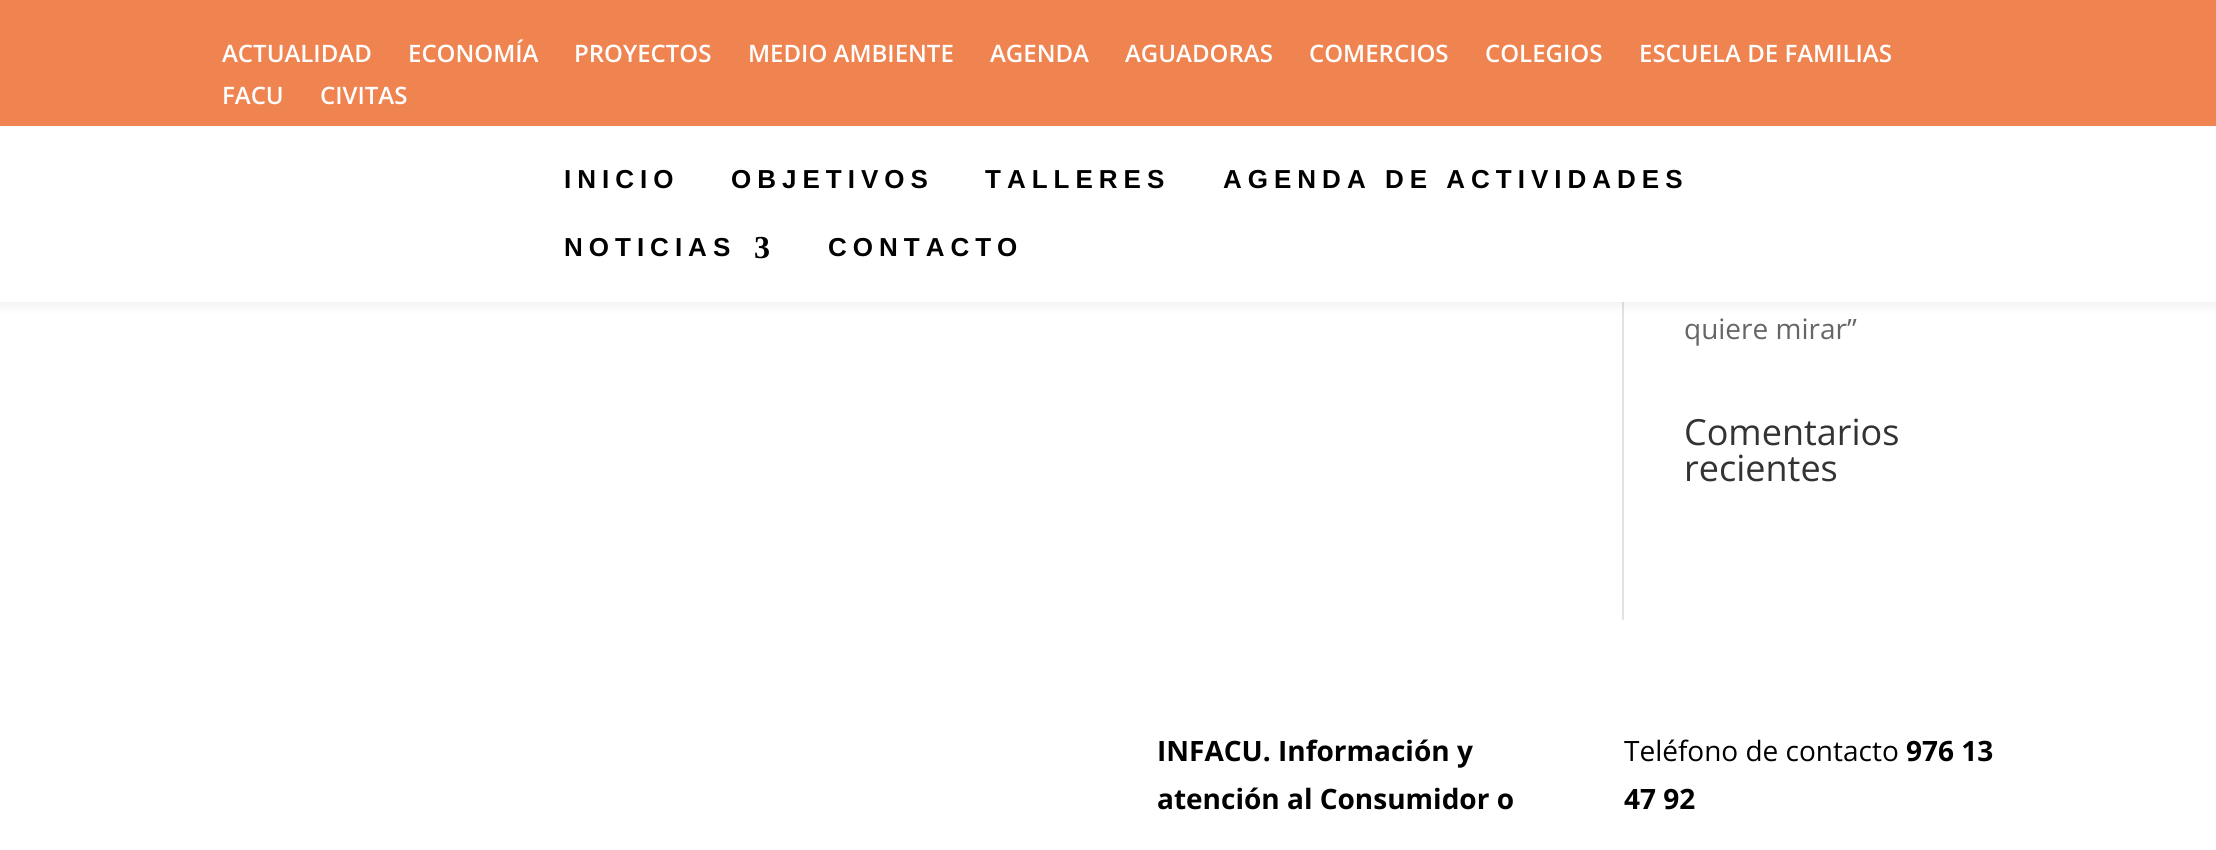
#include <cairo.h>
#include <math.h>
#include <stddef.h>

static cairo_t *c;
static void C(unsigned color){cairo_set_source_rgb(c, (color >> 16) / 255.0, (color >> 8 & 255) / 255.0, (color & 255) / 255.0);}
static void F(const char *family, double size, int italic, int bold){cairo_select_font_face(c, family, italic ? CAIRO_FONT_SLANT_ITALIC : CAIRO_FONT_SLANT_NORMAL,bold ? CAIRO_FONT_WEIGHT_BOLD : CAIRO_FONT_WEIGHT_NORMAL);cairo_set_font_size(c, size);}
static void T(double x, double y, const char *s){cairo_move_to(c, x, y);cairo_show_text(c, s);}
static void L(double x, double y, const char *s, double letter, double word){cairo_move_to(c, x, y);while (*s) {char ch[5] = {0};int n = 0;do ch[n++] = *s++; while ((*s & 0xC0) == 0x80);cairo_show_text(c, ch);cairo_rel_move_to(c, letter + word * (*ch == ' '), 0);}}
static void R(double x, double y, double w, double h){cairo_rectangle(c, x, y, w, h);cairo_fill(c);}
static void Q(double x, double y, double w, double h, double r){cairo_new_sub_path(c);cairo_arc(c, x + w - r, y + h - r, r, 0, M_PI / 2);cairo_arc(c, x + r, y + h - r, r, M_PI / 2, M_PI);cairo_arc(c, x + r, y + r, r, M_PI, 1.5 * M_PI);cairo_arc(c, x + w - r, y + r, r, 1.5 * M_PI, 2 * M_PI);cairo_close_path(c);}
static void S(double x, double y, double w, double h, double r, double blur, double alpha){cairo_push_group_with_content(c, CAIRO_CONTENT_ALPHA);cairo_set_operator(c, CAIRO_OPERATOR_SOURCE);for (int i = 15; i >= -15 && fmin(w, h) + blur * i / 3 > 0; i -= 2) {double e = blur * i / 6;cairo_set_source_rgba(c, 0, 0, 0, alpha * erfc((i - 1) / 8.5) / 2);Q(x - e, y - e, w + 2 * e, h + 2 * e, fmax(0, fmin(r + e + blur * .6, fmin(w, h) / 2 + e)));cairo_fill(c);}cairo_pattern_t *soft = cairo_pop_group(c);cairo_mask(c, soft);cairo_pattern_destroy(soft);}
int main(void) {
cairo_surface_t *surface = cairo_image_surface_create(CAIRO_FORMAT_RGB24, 2216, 850);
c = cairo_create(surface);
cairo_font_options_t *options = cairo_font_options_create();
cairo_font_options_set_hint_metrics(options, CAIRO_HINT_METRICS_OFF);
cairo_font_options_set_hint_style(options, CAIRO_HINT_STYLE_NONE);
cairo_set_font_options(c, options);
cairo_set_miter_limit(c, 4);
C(0xffffff);
cairo_paint(c);
C(0xe2e2e2);
R(1622,302,2,318);
C(0x000000);
S(0,126,2216,176,0,7,.1);
C(0xef8451);
R(0,0,2216,126);
F("Open Sans SemiBold",24,0,0);
C(0xffffff);
T(222,62,"ACTUALIDAD");
T(408,62,"ECONOMÍA");
T(574,62,"PROYECTOS");
T(748,62,"MEDIO AMBIENTE");
T(990,62,"AGENDA");
T(1125,62,"AGUADORAS");
T(1309,62,"COMERCIOS");
T(1485,62,"COLEGIOS");
T(1639,62,"ESCUELA DE FAMILIAS");
T(222,104,"FACU");
T(320,104,"CIVITAS");
R(0,126,2216,176);
F("Liberation Sans",26,0,1);
C(0x000000);
L(564,188,"INICIO",6,0);
L(731,188,"OBJETIVOS",6,0);
L(985,188,"TALLERES",6,0);
L(1223,188,"AGENDA DE ACTIVIDADES",6,0);
L(564,256,"NOTICIAS",6,0);
F("Liberation Serif",32,0,1);
L(754,258,"3",6,0);
F("Liberation Sans",26,0,1);
L(828,256,"CONTACTO",6,0);
F("Open Sans",28,0,0);
C(0x666666);
T(1684,339,"quiere mirar”");
F("Open Sans",36,0,0);
C(0x333333);
T(1684,445,"Comentarios");
T(1684,481,"recientes");
F("Open Sans",28,0,1);
C(0x000000);
T(1157,761,"INFACU. Información y");
T(1157,809,"atención al Consumidor o");
F("Open Sans",28,0,0);
T(1624,761,"Teléfono de contacto");
F("Open Sans",28,0,1);
T(1906,761,"976 13");
T(1624,809,"47 92");
cairo_surface_write_to_png(surface, "o.png");
cairo_font_options_destroy(options);
cairo_destroy(c);
cairo_surface_destroy(surface);
return 0;
}
